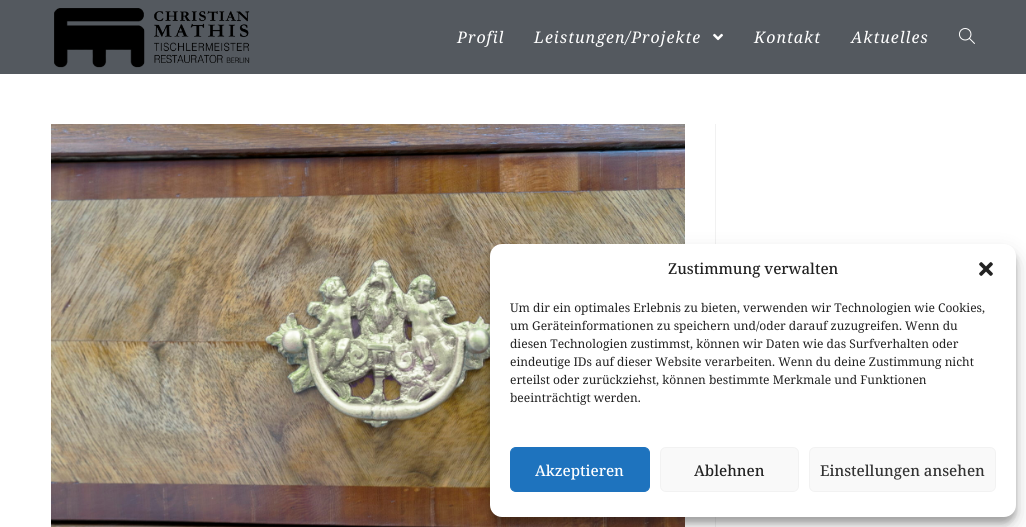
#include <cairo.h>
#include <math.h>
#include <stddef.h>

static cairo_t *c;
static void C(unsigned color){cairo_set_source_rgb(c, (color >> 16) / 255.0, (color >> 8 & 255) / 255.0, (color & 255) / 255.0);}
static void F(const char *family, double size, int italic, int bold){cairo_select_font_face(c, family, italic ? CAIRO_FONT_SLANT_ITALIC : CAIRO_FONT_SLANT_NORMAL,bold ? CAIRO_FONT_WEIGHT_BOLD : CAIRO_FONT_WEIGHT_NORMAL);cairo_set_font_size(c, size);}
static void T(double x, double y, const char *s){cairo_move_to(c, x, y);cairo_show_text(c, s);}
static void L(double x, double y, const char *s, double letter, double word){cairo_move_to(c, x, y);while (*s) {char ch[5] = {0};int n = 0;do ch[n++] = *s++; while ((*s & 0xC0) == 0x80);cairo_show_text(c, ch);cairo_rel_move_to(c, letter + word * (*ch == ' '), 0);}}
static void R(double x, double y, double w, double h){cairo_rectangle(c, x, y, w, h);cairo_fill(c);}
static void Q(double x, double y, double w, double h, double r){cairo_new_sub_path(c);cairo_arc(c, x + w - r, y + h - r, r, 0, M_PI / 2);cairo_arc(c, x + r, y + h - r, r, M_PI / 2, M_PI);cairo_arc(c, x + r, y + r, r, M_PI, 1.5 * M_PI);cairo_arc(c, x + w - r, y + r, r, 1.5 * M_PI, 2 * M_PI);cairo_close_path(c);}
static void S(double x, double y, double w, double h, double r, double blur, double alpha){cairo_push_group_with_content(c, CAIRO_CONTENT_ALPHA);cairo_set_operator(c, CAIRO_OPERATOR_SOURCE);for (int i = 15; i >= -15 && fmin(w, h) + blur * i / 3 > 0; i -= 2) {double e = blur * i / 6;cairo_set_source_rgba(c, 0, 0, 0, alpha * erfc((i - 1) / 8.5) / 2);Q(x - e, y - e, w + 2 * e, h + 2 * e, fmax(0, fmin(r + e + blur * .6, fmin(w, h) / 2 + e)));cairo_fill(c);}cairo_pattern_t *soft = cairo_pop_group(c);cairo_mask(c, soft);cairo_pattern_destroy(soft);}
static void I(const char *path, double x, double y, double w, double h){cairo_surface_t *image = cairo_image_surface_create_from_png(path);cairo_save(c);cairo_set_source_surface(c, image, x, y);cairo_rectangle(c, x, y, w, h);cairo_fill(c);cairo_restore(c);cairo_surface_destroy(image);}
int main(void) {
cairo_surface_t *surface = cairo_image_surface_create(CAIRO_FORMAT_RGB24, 1026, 527);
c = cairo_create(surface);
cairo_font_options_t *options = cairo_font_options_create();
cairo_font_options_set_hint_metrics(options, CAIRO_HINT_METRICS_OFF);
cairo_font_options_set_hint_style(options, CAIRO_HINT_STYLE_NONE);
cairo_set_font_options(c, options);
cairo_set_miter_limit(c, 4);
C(0xffffff);
cairo_paint(c);
C(0x54595f);
R(0,0,1026,74);
I("1.png",54,8,196,60);
F("Noto Serif",16,1,0);
C(0xffffff);
L(457,43,"Profil",1,0);
L(534,43,"Leistungen/Projekte",1,0);
I("2.png",713,33,10,8);
L(754,43,"Kontakt",1,0);
L(851,43,"Aktuelles",1,0);
I("3.png",959,28,16,16);
C(0xf1f1f1);
R(715,124,1,403);
I("4.png",51,124,634,403);
C(0x000000);
S(490,250,526,273,12,3,.23);
S(490,254,526,273,12,10,.19);
C(0xffffff);
Q(490,244,526,273,12);
cairo_fill(c);
F("Noto Serif Medium",15,0,0);
C(0x222222);
T(668,274,"Zustimmung verwalten");
I("5.png",979,262,14,14);
F("Noto Serif",12,0,0);
T(510,312,"Um dir ein optimales Erlebnis zu bieten, verwenden wir Technologien wie Cookies,");
T(510,330,"um Geräteinformationen zu speichern und/oder darauf zuzugreifen. Wenn du");
T(510,348,"diesen Technologien zustimmst, können wir Daten wie das Surfverhalten oder");
T(510,366,"eindeutige IDs auf dieser Website verarbeiten. Wenn du deine Zustimmung nicht");
T(510,384,"erteilst oder zurückziehst, können bestimmte Merkmale und Funktionen");
T(510,402,"beeinträchtigt werden.");
C(0x1e73be);
Q(510.5,447.5,139,44,5.5);
cairo_fill_preserve(c);
cairo_set_line_width(c,1);
cairo_stroke(c);
F("Noto Serif Medium",15,0,0);
C(0xffffff);
T(535,476,"Akzeptieren");
C(0xf9f9f9);
Q(660.5,447.5,138,44,5.5);
cairo_fill_preserve(c);
C(0xf2f2f2);
cairo_stroke(c);
C(0x222222);
T(694,476,"Ablehnen");
C(0xf9f9f9);
Q(809.5,447.5,186,44,5.5);
cairo_fill_preserve(c);
C(0xf2f2f2);
cairo_stroke(c);
C(0x333333);
T(820,476,"Einstellungen ansehen");
cairo_surface_write_to_png(surface, "o.png");
cairo_font_options_destroy(options);
cairo_destroy(c);
cairo_surface_destroy(surface);
return 0;
}
